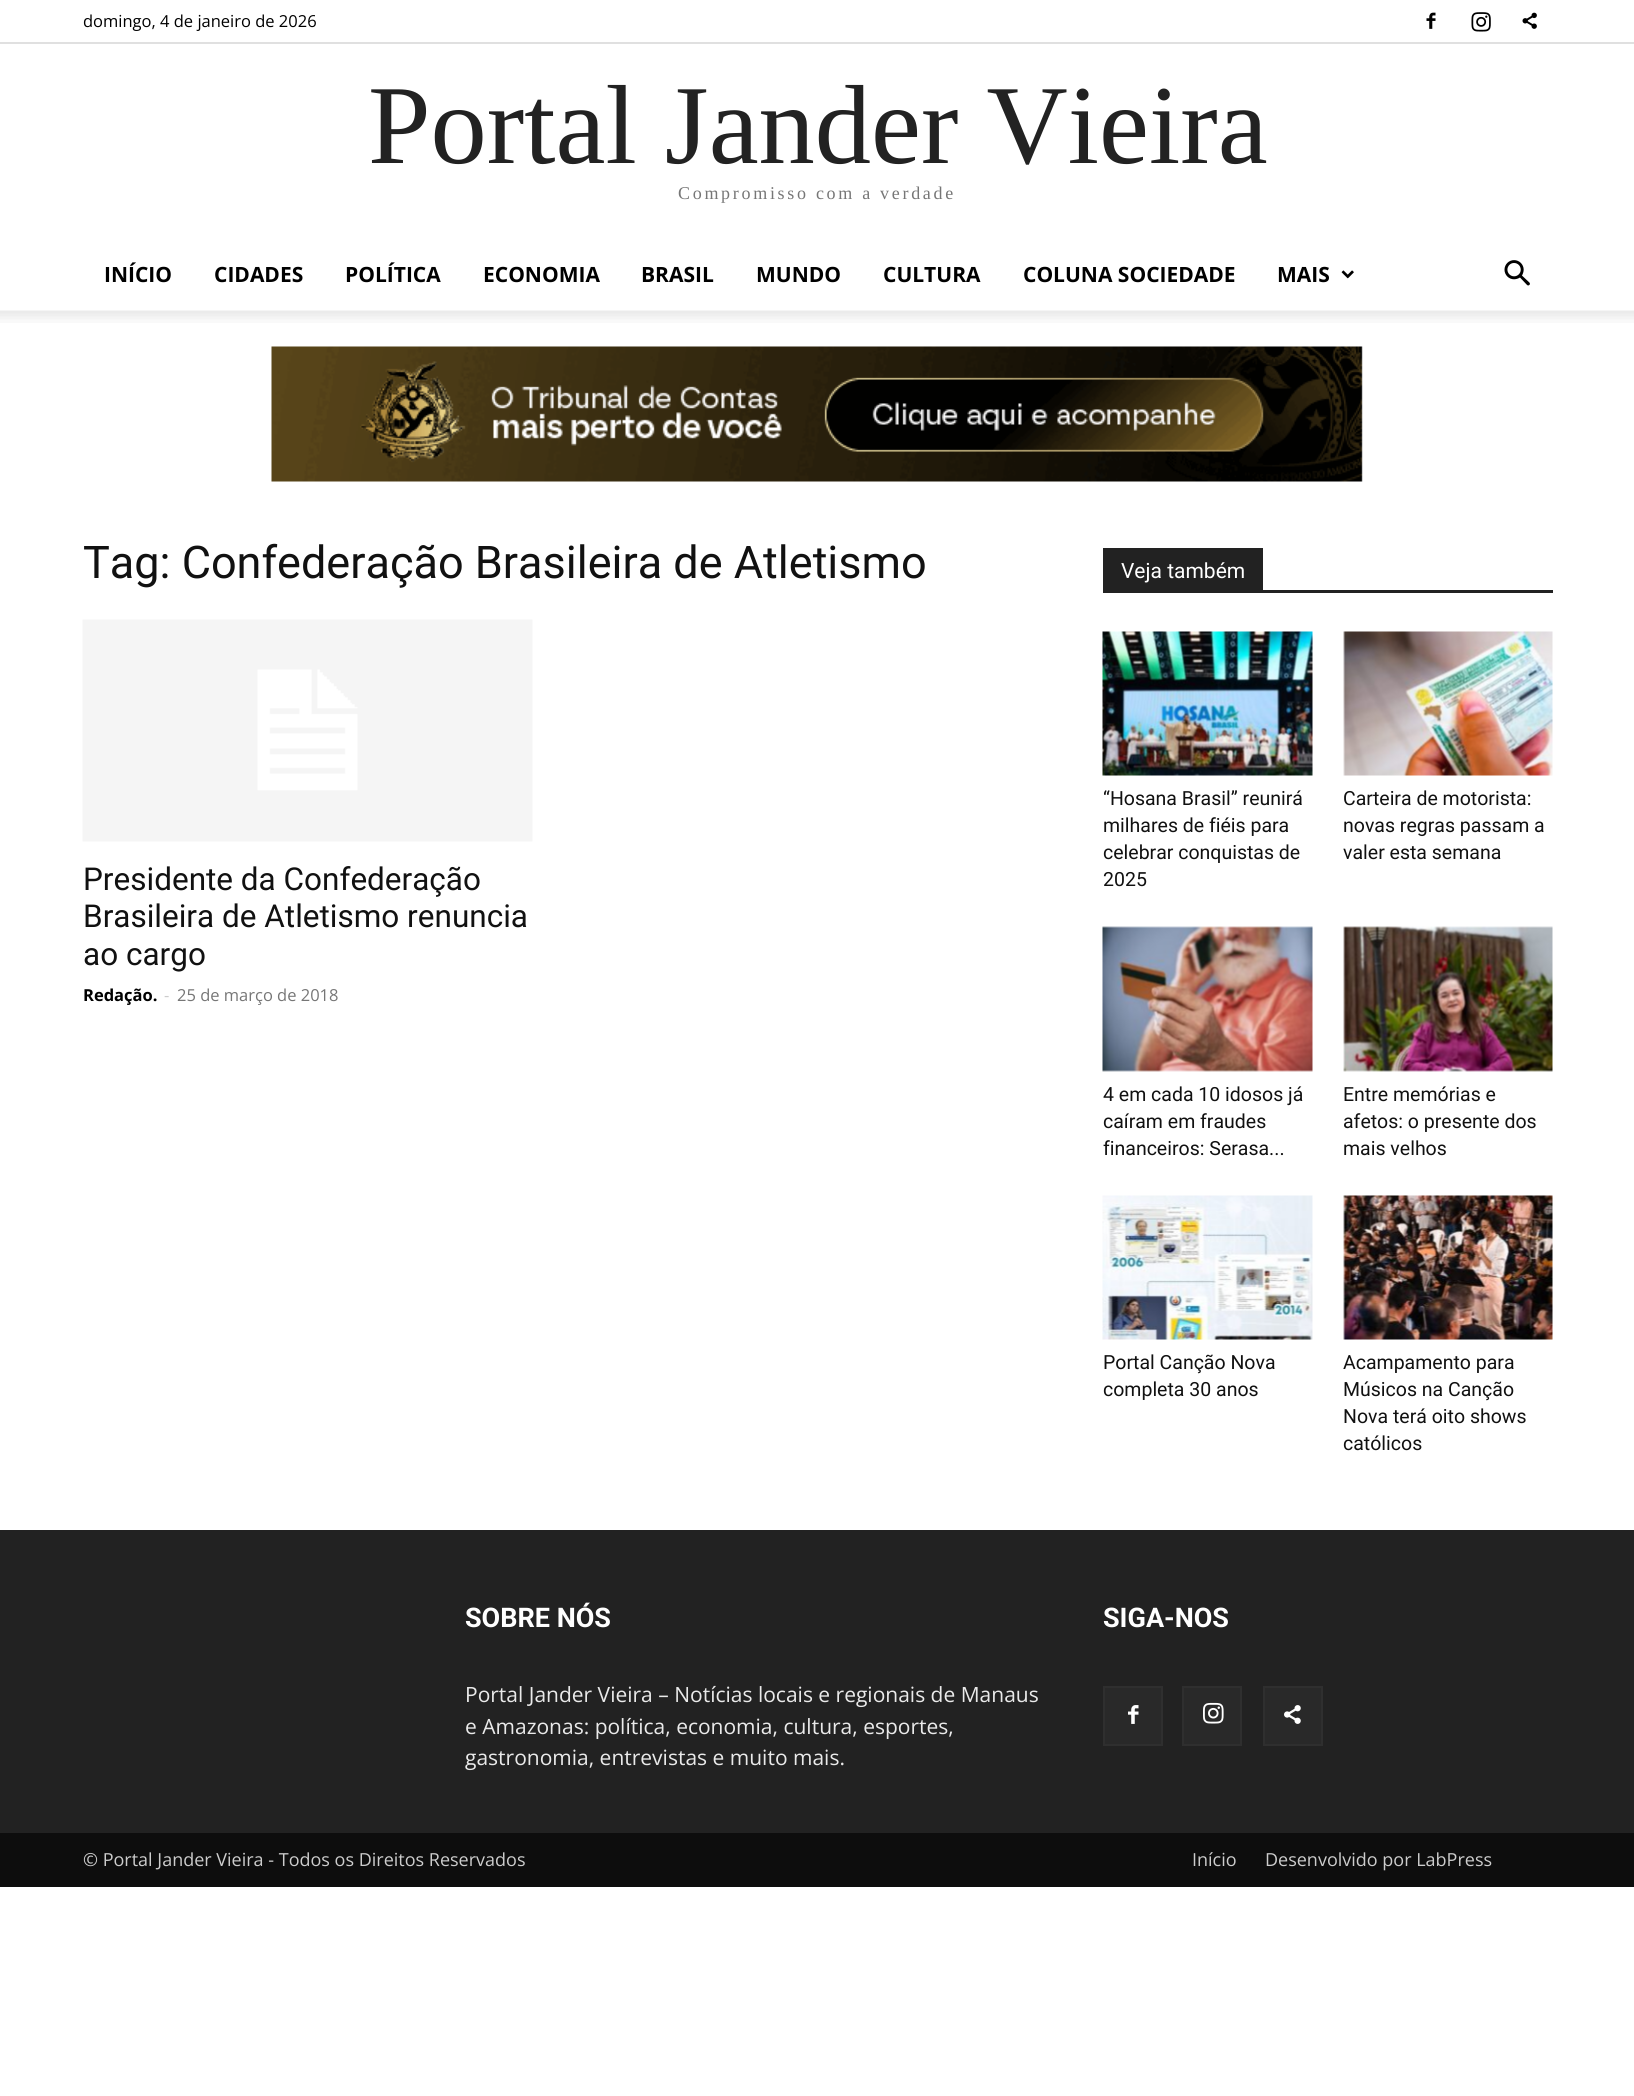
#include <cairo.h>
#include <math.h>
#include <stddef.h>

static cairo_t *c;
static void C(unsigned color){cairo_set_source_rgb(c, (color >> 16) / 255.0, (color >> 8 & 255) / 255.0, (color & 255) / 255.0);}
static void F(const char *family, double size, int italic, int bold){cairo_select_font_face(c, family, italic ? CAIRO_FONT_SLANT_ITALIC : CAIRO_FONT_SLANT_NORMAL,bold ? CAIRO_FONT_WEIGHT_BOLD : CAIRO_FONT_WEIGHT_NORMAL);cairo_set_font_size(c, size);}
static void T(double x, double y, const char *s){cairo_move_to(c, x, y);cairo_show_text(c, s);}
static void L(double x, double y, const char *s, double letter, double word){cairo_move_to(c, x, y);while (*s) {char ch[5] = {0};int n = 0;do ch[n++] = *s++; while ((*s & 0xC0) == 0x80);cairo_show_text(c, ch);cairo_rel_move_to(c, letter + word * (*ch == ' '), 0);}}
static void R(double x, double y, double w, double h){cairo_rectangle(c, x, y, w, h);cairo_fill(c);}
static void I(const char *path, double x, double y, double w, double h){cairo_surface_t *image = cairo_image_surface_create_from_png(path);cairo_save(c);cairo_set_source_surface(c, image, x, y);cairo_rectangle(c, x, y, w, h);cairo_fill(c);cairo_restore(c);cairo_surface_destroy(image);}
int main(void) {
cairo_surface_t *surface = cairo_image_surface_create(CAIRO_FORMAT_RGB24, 1634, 2096);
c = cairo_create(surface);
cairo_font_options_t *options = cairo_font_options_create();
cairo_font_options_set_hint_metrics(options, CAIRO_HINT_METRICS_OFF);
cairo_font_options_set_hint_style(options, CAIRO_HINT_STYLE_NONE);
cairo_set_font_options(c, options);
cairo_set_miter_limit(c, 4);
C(0xffffff);
cairo_paint(c);
C(0xe0e0e0);
R(0,42,1634,2);
F("Open Sans",16.5,0,0);
C(0x000000);
T(83,27,"domingo, 4 de janeiro de 2026");
I("1.png",1426,12,10,17);
I("2.png",1471,12,20,20);
I("3.png",1522,12,15,17);
F("Liberation Serif",112.5,0,0);
C(0x222222);
T(368,163,"Portal Jander Vieira");
F("Liberation Serif",18,0,0);
C(0x767676);
L(678,199,"Compromisso com a verdade",2.7,0);
F("Open Sans",21,0,1);
C(0x000000);
T(104,282,"INÍCIO");
T(214,282,"CIDADES");
T(345,282,"POLÍTICA");
T(483,282,"ECONOMIA");
T(641,282,"BRASIL");
T(756,282,"MUNDO");
T(883,282,"CULTURA");
T(1023,282,"COLUNA SOCIEDADE");
T(1277,282,"MAIS");
I("4.png",1341,270,13,9);
I("5.png",1504,260,26,26);
I("6.png",0,310,1634,13);
I("7.png",271,346,1092,136);
F("Roboto",45,0,0);
C(0x111111);
T(83,578,"Tag: Confederação Brasileira de Atletismo");
I("8.png",82,619,451,223);
F("Roboto",31.5,0,0);
T(83,890,"Presidente da Confederação");
T(83,927,"Brasileira de Atletismo renuncia");
T(83,965,"ao cargo");
F("Open Sans",16.5,0,1);
C(0x000000);
T(83,1001,"Redação.");
F("Open Sans",16.5,0,0);
C(0xcccccc);
T(164,1001,"-");
C(0x767676);
T(177,1001,"25 de março de 2018");
C(0x222222);
R(1103,590,450,3);
R(1103,548,160,42);
F("Roboto",21,0,0);
C(0xffffff);
T(1121,578,"Veja também");
I("9.png",1102,631,211,145);
F("Roboto",19.5,0,0);
C(0x111111);
T(1103,805,"“Hosana Brasil” reunirá");
T(1103,832,"milhares de fiéis para");
T(1103,859,"celebrar conquistas de");
T(1103,886,"2025");
I("10.png",1343,631,210,145);
T(1343,805,"Carteira de motorista:");
T(1343,832,"novas regras passam a");
T(1343,859,"valer esta semana");
I("11.png",1102,926,211,146);
T(1103,1101,"4 em cada 10 idosos já");
T(1103,1128,"caíram em fraudes");
T(1103,1155,"financeiros: Serasa...");
I("12.png",1343,926,210,146);
T(1343,1101,"Entre memórias e");
T(1343,1128,"afetos: o presente dos");
T(1343,1155,"mais velhos");
I("13.png",1102,1195,211,145);
T(1103,1369,"Portal Canção Nova");
T(1103,1396,"completa 30 anos");
I("14.png",1343,1195,210,145);
T(1343,1369,"Acampamento para");
T(1343,1396,"Músicos na Canção");
T(1343,1423,"Nova terá oito shows");
T(1343,1450,"católicos");
C(0x222222);
R(0,1530,1634,303);
F("Roboto",27,0,1);
C(0xffffff);
T(465,1627,"SOBRE NÓS");
F("Open Sans",21,0,0);
C(0xeaeaea);
T(465,1702,"Portal Jander Vieira – Notícias locais e regionais de Manaus");
T(465,1734,"e Amazonas: política, economia, cultura, esportes,");
T(465,1765,"gastronomia, entrevistas e muito mais.");
F("Roboto",27,0,1);
C(0xffffff);
T(1103,1627,"SIGA-NOS");
C(0x292929);
R(1105,1688,56,56);
I("15.png",1128,1705,11,19);
cairo_rectangle(c,1104,1687,58,58);
C(0x2f2f2f);
cairo_stroke(c);
C(0x292929);
R(1184,1688,56,56);
I("16.png",1203,1702,21,22);
cairo_rectangle(c,1183,1687,58,58);
C(0x2f2f2f);
cairo_stroke(c);
C(0x292929);
R(1265,1688,56,56);
I("17.png",1284,1705,17,19);
cairo_rectangle(c,1264,1687,58,58);
C(0x2f2f2f);
cairo_stroke(c);
C(0x0d0d0d);
R(0,1833,1634,54);
F("Open Sans",18,0,0);
C(0xcccccc);
T(83,1866,"© Portal Jander Vieira - Todos os Direitos Reservados");
T(1192,1866,"Início");
T(1265,1866,"Desenvolvido por LabPress");
cairo_surface_write_to_png(surface, "o.png");
cairo_font_options_destroy(options);
cairo_destroy(c);
cairo_surface_destroy(surface);
return 0;
}
